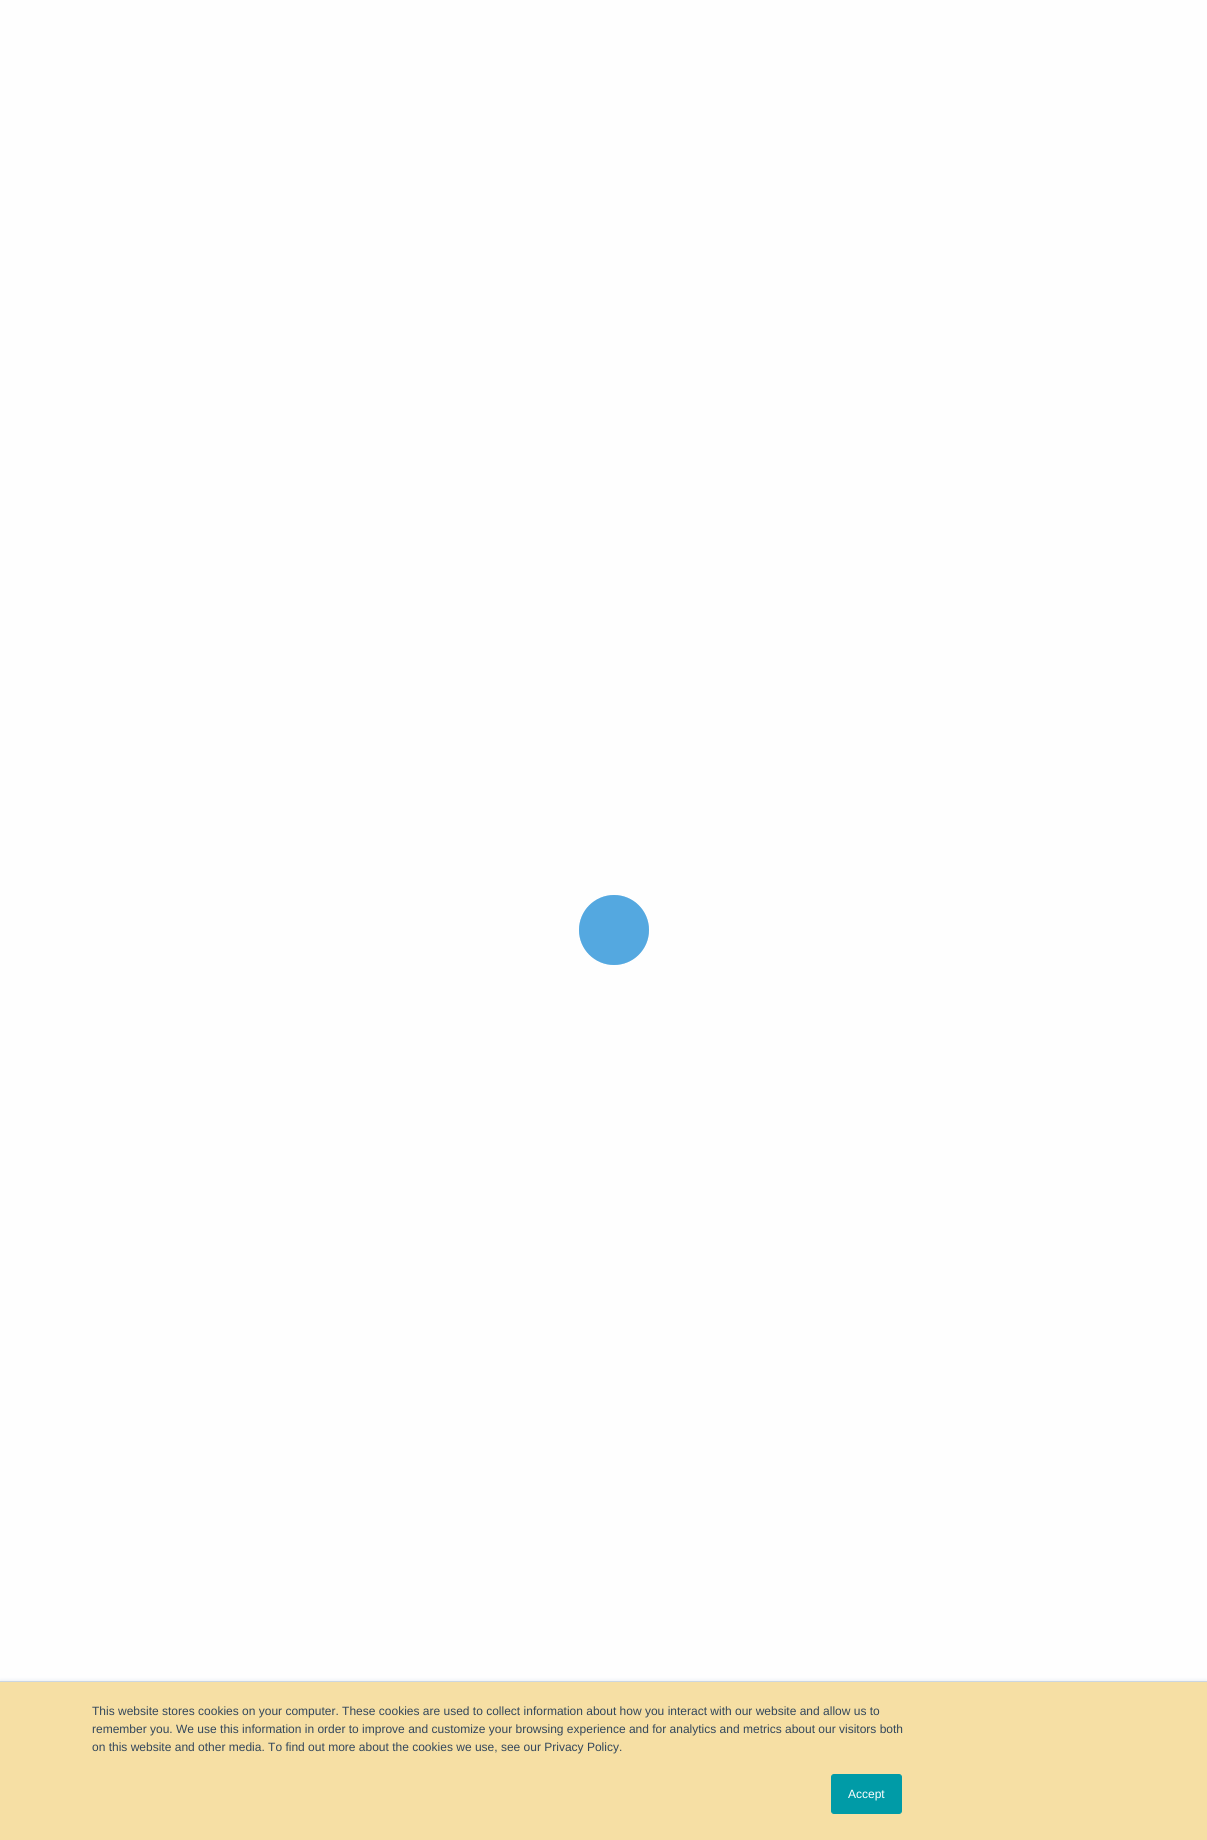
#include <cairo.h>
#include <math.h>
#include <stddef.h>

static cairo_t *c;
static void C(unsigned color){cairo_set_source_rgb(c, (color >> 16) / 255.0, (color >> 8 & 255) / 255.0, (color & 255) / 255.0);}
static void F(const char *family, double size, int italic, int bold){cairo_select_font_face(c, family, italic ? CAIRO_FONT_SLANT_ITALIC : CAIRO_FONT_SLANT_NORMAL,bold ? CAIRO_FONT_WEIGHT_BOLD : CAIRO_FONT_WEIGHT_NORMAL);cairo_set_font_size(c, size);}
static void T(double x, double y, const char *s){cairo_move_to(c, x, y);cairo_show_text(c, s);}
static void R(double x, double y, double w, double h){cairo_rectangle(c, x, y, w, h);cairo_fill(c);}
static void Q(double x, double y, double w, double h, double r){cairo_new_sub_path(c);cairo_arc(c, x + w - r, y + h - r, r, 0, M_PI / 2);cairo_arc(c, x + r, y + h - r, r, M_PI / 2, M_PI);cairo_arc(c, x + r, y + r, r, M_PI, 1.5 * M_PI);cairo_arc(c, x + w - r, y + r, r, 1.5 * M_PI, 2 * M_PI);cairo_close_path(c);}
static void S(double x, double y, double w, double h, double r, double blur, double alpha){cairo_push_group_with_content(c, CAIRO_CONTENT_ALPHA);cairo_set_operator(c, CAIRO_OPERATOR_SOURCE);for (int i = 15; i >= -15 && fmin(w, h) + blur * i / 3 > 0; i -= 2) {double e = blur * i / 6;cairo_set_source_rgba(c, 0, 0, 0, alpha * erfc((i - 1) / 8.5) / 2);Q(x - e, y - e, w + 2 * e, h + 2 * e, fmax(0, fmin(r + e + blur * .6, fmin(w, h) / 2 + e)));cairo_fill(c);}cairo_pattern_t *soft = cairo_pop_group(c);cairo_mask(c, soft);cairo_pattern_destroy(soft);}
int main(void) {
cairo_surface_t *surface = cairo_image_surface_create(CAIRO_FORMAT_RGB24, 1207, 1840);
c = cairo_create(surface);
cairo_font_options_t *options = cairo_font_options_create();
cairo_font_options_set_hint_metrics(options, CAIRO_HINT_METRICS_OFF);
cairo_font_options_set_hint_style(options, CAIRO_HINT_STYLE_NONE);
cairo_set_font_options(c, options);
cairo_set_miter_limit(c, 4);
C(0xfefefe);
cairo_paint(c);
C(0x85c1e9);
cairo_arc(c,614,930,35,0,2 * M_PI);
cairo_fill(c);
cairo_set_source_rgba(c,0.204,0.596,0.859,0.6);
cairo_arc(c,614,930,35,0,2 * M_PI);
cairo_fill(c);
C(0xeaf0f6);
S(0,1680,1207,159,0,1.5,1);
C(0xf6dfa4);
R(0,1682,1207,158);
C(0xcbd6e2);
R(0,1681,1207,1);
F("Liberation Sans",12,0,0);
C(0x33475b);
T(92,1715,"This website stores cookies on your computer. These cookies are used to collect information about how you interact with our website and allow us to");
T(92,1733,"remember you. We use this information in order to improve and customize your browsing experience and for analytics and metrics about our visitors both");
T(92,1751,"on this website and other media. To find out more about the cookies we use, see our Privacy Policy.");
C(0x009ba7);
Q(831.5,1774.5,70,39,2.5);
cairo_fill_preserve(c);
cairo_set_line_width(c,1);
cairo_stroke(c);
C(0xffffff);
T(848,1798,"Accept");
cairo_surface_write_to_png(surface, "o.png");
cairo_font_options_destroy(options);
cairo_destroy(c);
cairo_surface_destroy(surface);
return 0;
}
